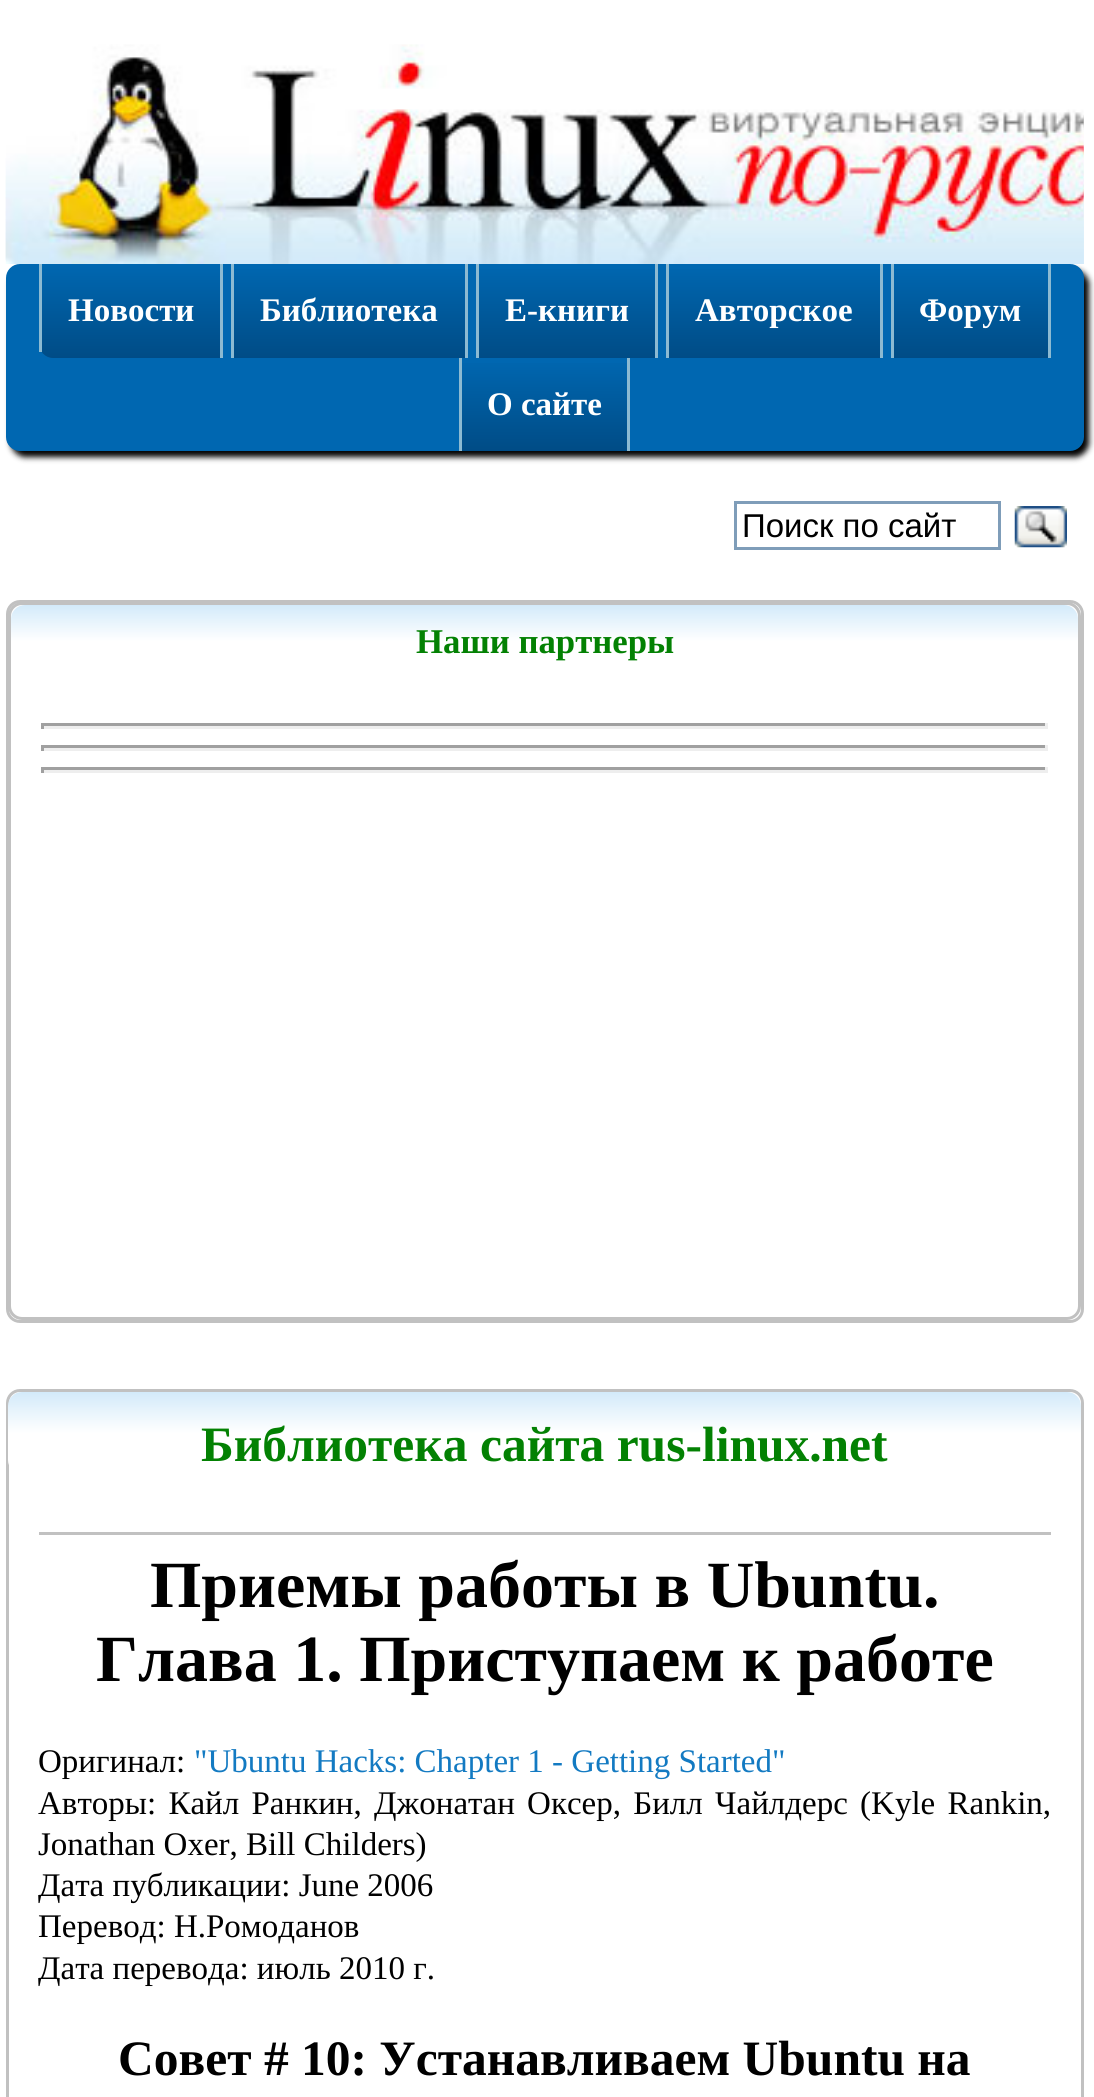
#include <cairo.h>
#include <math.h>
#include <stddef.h>

static cairo_t *c;
static void C(unsigned color){cairo_set_source_rgb(c, (color >> 16) / 255.0, (color >> 8 & 255) / 255.0, (color & 255) / 255.0);}
static void F(const char *family, double size, int italic, int bold){cairo_select_font_face(c, family, italic ? CAIRO_FONT_SLANT_ITALIC : CAIRO_FONT_SLANT_NORMAL,bold ? CAIRO_FONT_WEIGHT_BOLD : CAIRO_FONT_WEIGHT_NORMAL);cairo_set_font_size(c, size);}
static void T(double x, double y, const char *s){cairo_move_to(c, x, y);cairo_show_text(c, s);}
static void L(double x, double y, const char *s, double letter, double word){cairo_move_to(c, x, y);while (*s) {char ch[5] = {0};int n = 0;do ch[n++] = *s++; while ((*s & 0xC0) == 0x80);cairo_show_text(c, ch);cairo_rel_move_to(c, letter + word * (*ch == ' '), 0);}}
static void R(double x, double y, double w, double h){cairo_rectangle(c, x, y, w, h);cairo_fill(c);}
static void Q(double x, double y, double w, double h, double r){cairo_new_sub_path(c);cairo_arc(c, x + w - r, y + h - r, r, 0, M_PI / 2);cairo_arc(c, x + r, y + h - r, r, M_PI / 2, M_PI);cairo_arc(c, x + r, y + r, r, M_PI, 1.5 * M_PI);cairo_arc(c, x + w - r, y + r, r, 1.5 * M_PI, 2 * M_PI);cairo_close_path(c);}
static void S(double x, double y, double w, double h, double r, double blur, double alpha){cairo_push_group_with_content(c, CAIRO_CONTENT_ALPHA);cairo_set_operator(c, CAIRO_OPERATOR_SOURCE);for (int i = 15; i >= -15 && fmin(w, h) + blur * i / 3 > 0; i -= 2) {double e = blur * i / 6;cairo_set_source_rgba(c, 0, 0, 0, alpha * erfc((i - 1) / 8.5) / 2);Q(x - e, y - e, w + 2 * e, h + 2 * e, fmax(0, fmin(r + e + blur * .6, fmin(w, h) / 2 + e)));cairo_fill(c);}cairo_pattern_t *soft = cairo_pop_group(c);cairo_mask(c, soft);cairo_pattern_destroy(soft);}
static void I(const char *path, double x, double y, double w, double h){cairo_surface_t *image = cairo_image_surface_create_from_png(path);cairo_save(c);cairo_set_source_surface(c, image, x, y);cairo_rectangle(c, x, y, w, h);cairo_fill(c);cairo_restore(c);cairo_surface_destroy(image);}
int main(void) {
cairo_surface_t *surface = cairo_image_surface_create(CAIRO_FORMAT_RGB24, 1094, 2097);
c = cairo_create(surface);
cairo_font_options_t *options = cairo_font_options_create();
cairo_font_options_set_hint_metrics(options, CAIRO_HINT_METRICS_OFF);
cairo_font_options_set_hint_style(options, CAIRO_HINT_STYLE_NONE);
cairo_set_font_options(c, options);
cairo_set_miter_limit(c, 4);
cairo_pattern_t *gradient;
C(0xffffff);
cairo_paint(c);
C(0x000000);
S(11,270,1078,187,14,3,1);
gradient = cairo_pattern_create_linear(635,275,635,22);
cairo_pattern_add_color_stop_rgba(gradient,0,0.827,0.918,0.98,1);
cairo_pattern_add_color_stop_rgba(gradient,.5,1,1,1,1);
cairo_pattern_add_color_stop_rgba(gradient,1,1,1,1,1);
cairo_set_source(c,gradient);
cairo_pattern_destroy(gradient);
R(6,156,1078,108);
I("1.png",5,44,1079,220);
I("2.png",5,115,1079,145);
C(0x0067b1);
Q(6,264,1078,187,14);
cairo_fill(c);
gradient = cairo_pattern_create_linear(131,264,131,358);
cairo_pattern_add_color_stop_rgba(gradient,0,0,0.404,0.694,1);
cairo_pattern_add_color_stop_rgba(gradient,1,0,0.298,0.525,1);
cairo_set_source(c,gradient);
cairo_pattern_destroy(gradient);
cairo_new_path(c);
cairo_move_to(c,39,264);
cairo_line_to(c,223,264);
cairo_line_to(c,223,358);
cairo_line_to(c,53,358);
cairo_curve_to(c,45.5,358,39,351.5,39,344);
cairo_close_path(c);
cairo_fill(c);
C(0x8cbad2);
R(220,264,3,94);
R(39,264,3,88);
F("Liberation Serif",33,0,1);
C(0xffffff);
T(68,321,"Новости");
gradient = cairo_pattern_create_linear(349,264,349,358);
cairo_pattern_add_color_stop_rgba(gradient,0,0,0.404,0.694,1);
cairo_pattern_add_color_stop_rgba(gradient,1,0,0.298,0.525,1);
cairo_set_source(c,gradient);
cairo_pattern_destroy(gradient);
R(234,269,231,89);
C(0x8cbad2);
R(465,264,3,94);
R(231,264,3,94);
C(0xffffff);
T(260,321,"Библиотека");
gradient = cairo_pattern_create_linear(567,264,567,358);
cairo_pattern_add_color_stop_rgba(gradient,0,0,0.404,0.694,1);
cairo_pattern_add_color_stop_rgba(gradient,1,0,0.298,0.525,1);
cairo_set_source(c,gradient);
cairo_pattern_destroy(gradient);
R(479,269,176,89);
C(0x8cbad2);
R(655,264,3,94);
R(476,264,3,94);
C(0xffffff);
T(505,321,"Е-книги");
gradient = cairo_pattern_create_linear(774,264,774,358);
cairo_pattern_add_color_stop_rgba(gradient,0,0,0.404,0.694,1);
cairo_pattern_add_color_stop_rgba(gradient,1,0,0.298,0.525,1);
cairo_set_source(c,gradient);
cairo_pattern_destroy(gradient);
R(669,269,211,89);
C(0x8cbad2);
R(880,264,3,94);
R(666,264,3,94);
C(0xffffff);
T(695,321,"Авторское");
gradient = cairo_pattern_create_linear(971,264,971,358);
cairo_pattern_add_color_stop_rgba(gradient,0,0,0.404,0.694,1);
cairo_pattern_add_color_stop_rgba(gradient,1,0,0.298,0.525,1);
cairo_set_source(c,gradient);
cairo_pattern_destroy(gradient);
R(894,269,154,89);
C(0x8cbad2);
R(1048,264,3,94);
R(891,264,3,94);
C(0xffffff);
T(919,321,"Форум");
gradient = cairo_pattern_create_linear(545,358,545,451);
cairo_pattern_add_color_stop_rgba(gradient,0,0,0.404,0.694,1);
cairo_pattern_add_color_stop_rgba(gradient,1,0,0.298,0.525,1);
cairo_set_source(c,gradient);
cairo_pattern_destroy(gradient);
R(462,363,165,88);
C(0x8cbad2);
R(627,358,3,93);
R(459,358,3,93);
C(0xffffff);
T(487,415,"О сайте");
cairo_rectangle(c,735.5,502.5,264,46);
C(0x7f9db9);
cairo_set_line_width(c,3);
cairo_stroke(c);
F("Liberation Sans",33,0,0);
C(0x000000);
T(742,537,"Поиск по сайт");
I("3.png",1014,506,53,42);
Q(7.5,601.5,1075,720,12.5);
C(0xc1c1c1);
cairo_stroke(c);
C(0xffffff);
Q(9.5,603.5,1070,715,12.5);
cairo_fill_preserve(c);
C(0xc1c1c1);
cairo_stroke(c);
gradient = cairo_pattern_create_linear(545,605,545,677);
cairo_pattern_add_color_stop_rgba(gradient,0,0.827,0.918,0.98,1);
cairo_pattern_add_color_stop_rgba(gradient,.5,1,1,1,1);
cairo_pattern_add_color_stop_rgba(gradient,1,1,1,1,1);
cairo_set_source(c,gradient);
cairo_pattern_destroy(gradient);
Q(11,605,1067,72,14);
cairo_fill(c);
F("Liberation Serif",34.75,0,1);
C(0x038103);
T(416,653,"Наши партнеры");
C(0xa0a0a0);
R(41,723,1007,3);
C(0xeeeeee);
R(1045,723,3,6);
R(41,726,1007,3);
C(0xa0a0a0);
R(41,723,3,6);
R(41,745,1007,3);
C(0xeeeeee);
R(1045,745,3,6);
R(41,748,1007,3);
C(0xa0a0a0);
R(41,745,3,6);
R(41,767,1007,3);
C(0xeeeeee);
R(1045,767,3,6);
R(41,770,1007,3);
C(0xa0a0a0);
R(41,767,3,6);
Q(7.5,1390.5,1075,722,12.5);
C(0xc1c1c1);
cairo_stroke(c);
gradient = cairo_pattern_create_linear(545,1392,545,1474);
cairo_pattern_add_color_stop_rgba(gradient,0,0.827,0.918,0.98,1);
cairo_pattern_add_color_stop_rgba(gradient,.5,1,1,1,1);
cairo_pattern_add_color_stop_rgba(gradient,1,1,1,1,1);
cairo_set_source(c,gradient);
cairo_pattern_destroy(gradient);
Q(8,1392,1073,82,14);
cairo_fill(c);
F("Liberation Serif",49.5,0,1);
C(0x038103);
T(201,1461,"Библиотека сайта rus-linux.net");
C(0xc1c1c1);
R(39,1532,1012,3);
F("Liberation Serif",66,0,1);
C(0x000000);
T(150,1607,"Приемы работы в Ubuntu.");
T(96,1681,"Глава 1. Приступаем к работе");
F("Liberation Serif",33,0,0);
T(38,1772,"Оригинал:");
C(0x137ac2);
T(194,1772,"\"Ubuntu Hacks: Chapter 1 - Getting Started\"");
C(0x000000);
L(38,1814,"Авторы: Кайл Ранкин, Джонатан Оксер, Билл Чайлдерс (Kyle Rankin,",0,4);
T(38,1855,"Jonathan Oxer, Bill Childers)");
T(38,1896,"Дата публикации: June 2006");
T(38,1937,"Перевод: Н.Ромоданов");
T(38,1979,"Дата перевода: июль 2010 г.");
F("Liberation Serif",49.5,0,1);
T(118,2075,"Совет # 10: Устанавливаем Ubuntu на");
cairo_surface_write_to_png(surface, "o.png");
cairo_font_options_destroy(options);
cairo_destroy(c);
cairo_surface_destroy(surface);
return 0;
}
